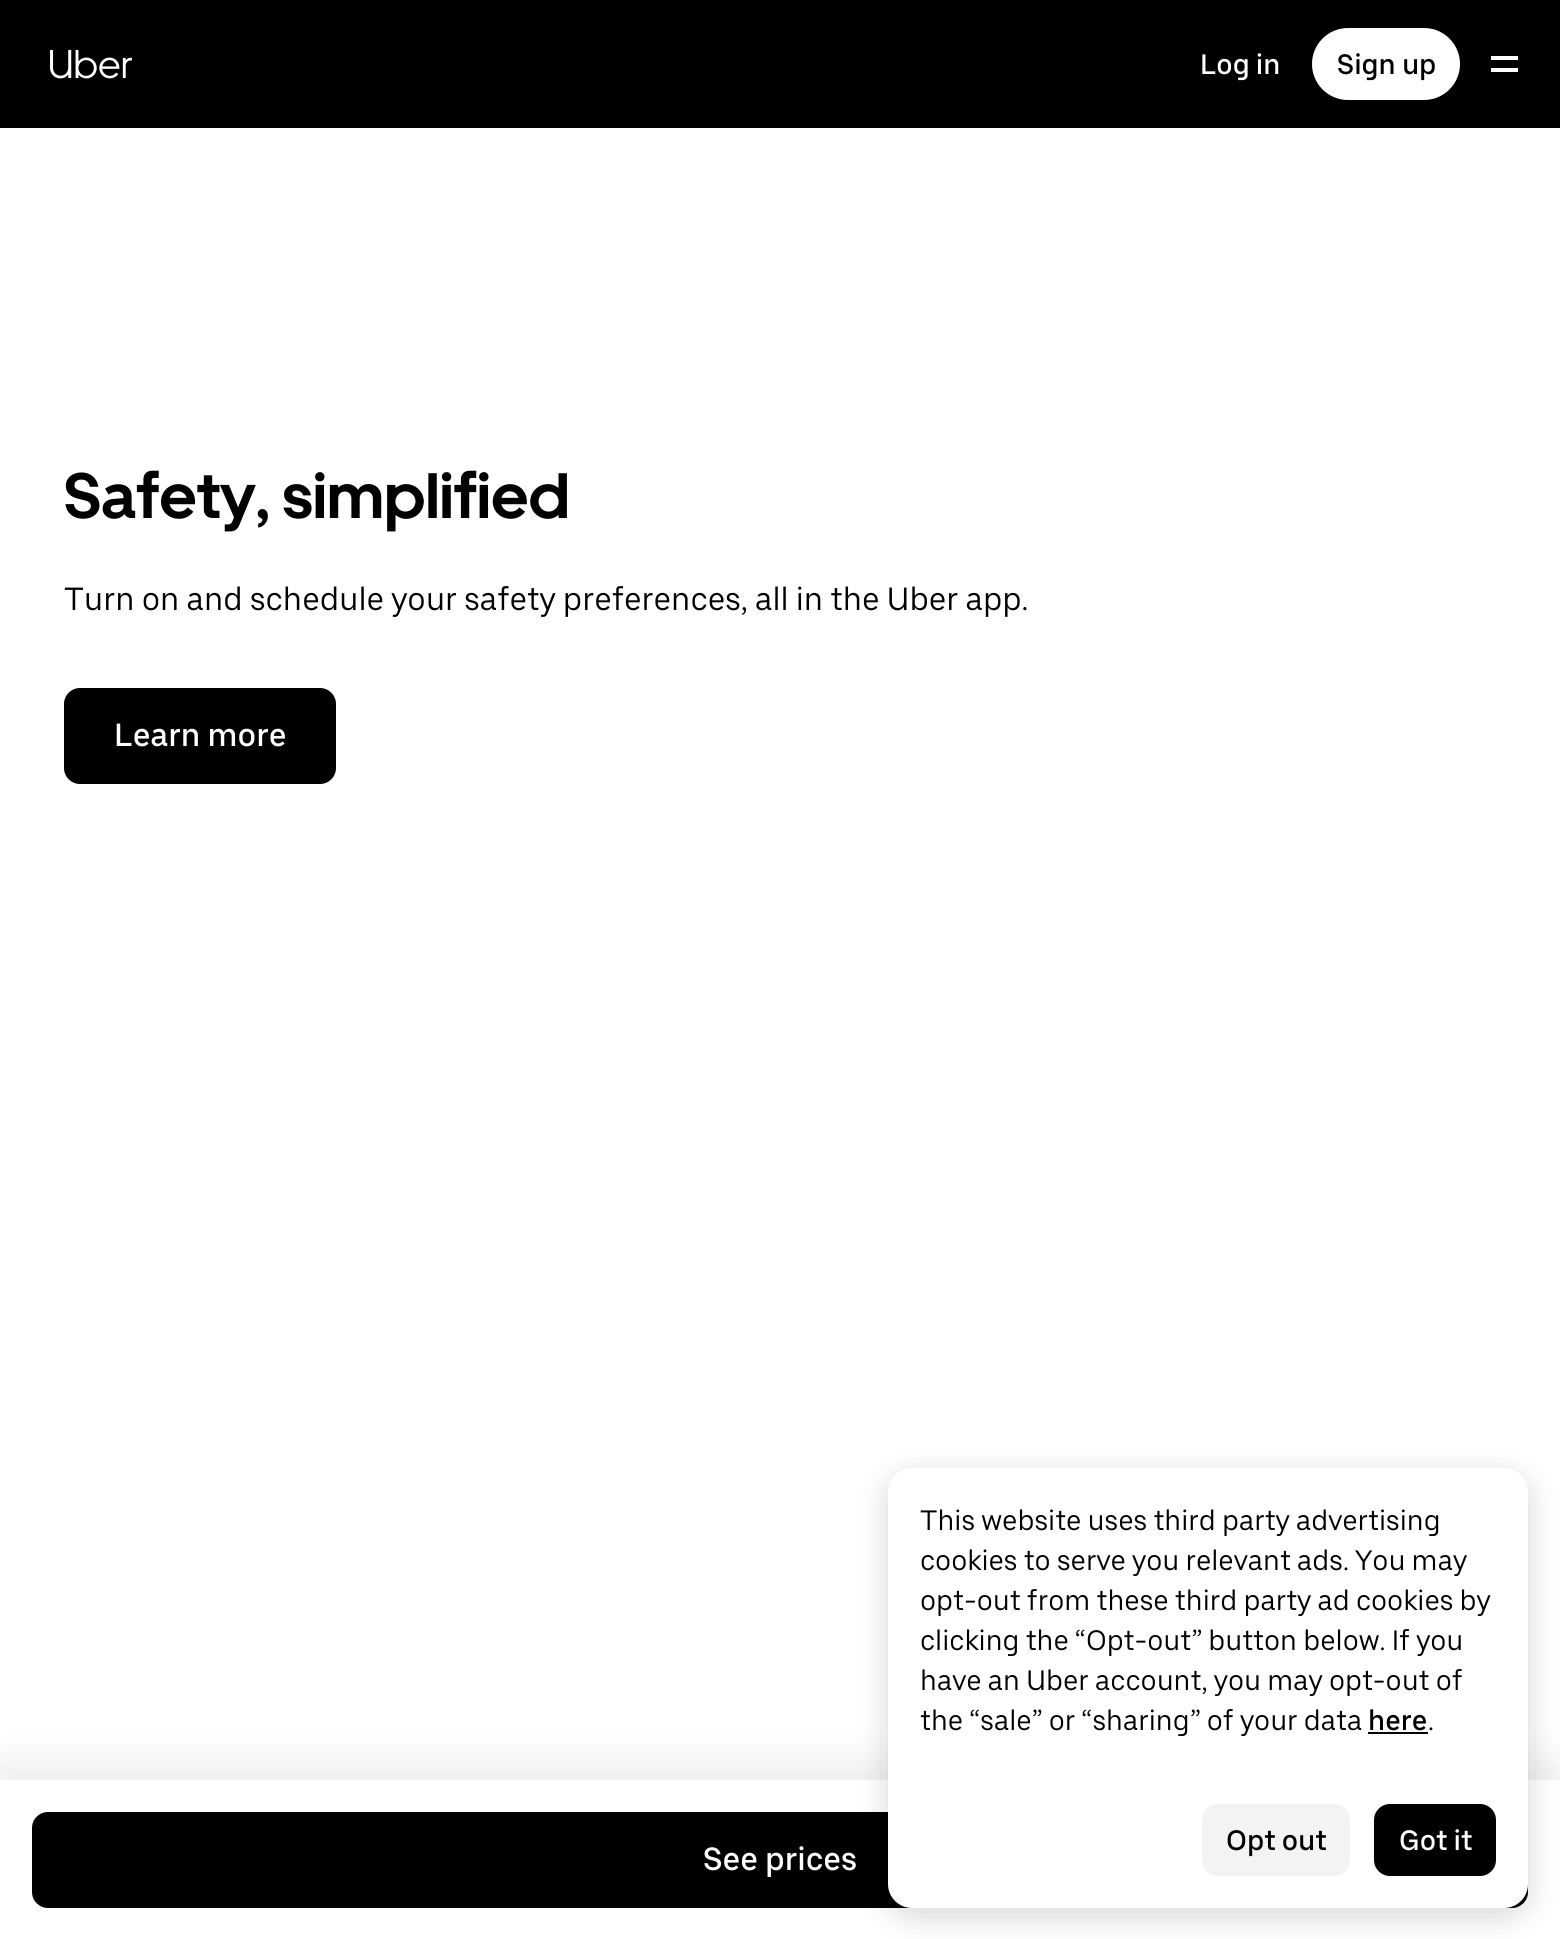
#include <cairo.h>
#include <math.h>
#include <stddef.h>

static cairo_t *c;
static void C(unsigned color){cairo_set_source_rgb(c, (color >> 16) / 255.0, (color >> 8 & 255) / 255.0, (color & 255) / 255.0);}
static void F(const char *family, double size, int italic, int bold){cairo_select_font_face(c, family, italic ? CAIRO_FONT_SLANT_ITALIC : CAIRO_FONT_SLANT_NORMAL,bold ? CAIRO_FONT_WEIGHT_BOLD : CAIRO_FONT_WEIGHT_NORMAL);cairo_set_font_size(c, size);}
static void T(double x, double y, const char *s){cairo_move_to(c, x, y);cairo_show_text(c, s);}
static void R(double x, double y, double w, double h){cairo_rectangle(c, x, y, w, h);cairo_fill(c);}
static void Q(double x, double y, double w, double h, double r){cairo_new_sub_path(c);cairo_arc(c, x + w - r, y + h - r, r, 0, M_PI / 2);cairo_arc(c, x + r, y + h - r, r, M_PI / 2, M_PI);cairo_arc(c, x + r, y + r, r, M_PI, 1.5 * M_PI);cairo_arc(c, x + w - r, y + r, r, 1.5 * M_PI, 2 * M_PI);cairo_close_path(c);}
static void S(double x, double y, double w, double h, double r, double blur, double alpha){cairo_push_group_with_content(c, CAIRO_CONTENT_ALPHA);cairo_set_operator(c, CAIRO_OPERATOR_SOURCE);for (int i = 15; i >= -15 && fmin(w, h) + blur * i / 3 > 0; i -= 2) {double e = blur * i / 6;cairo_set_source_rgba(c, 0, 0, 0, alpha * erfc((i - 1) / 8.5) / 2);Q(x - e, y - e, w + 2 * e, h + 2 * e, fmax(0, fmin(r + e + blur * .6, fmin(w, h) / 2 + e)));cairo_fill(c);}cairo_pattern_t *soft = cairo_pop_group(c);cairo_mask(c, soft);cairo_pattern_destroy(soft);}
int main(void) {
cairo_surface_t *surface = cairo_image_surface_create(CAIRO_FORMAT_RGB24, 1560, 1939);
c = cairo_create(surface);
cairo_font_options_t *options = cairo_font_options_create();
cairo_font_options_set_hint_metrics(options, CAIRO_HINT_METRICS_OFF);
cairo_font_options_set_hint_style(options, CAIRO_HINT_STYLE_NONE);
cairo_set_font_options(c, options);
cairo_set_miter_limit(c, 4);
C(0xffffff);
cairo_paint(c);
C(0x000000);
R(0,0,1560,128);
F("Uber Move",40,0,0);
C(0xffffff);
T(48,78,"Uber");
F("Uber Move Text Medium",28,0,0);
T(1200,74,"Log in");
Q(1312,28,148,72,36);
cairo_fill(c);
C(0x000000);
T(1337,74,"Sign up");
C(0xffffff);
R(1491,56,27,4);
R(1491,68,27,4);
F("Uber Move",64,0,1);
C(0x000000);
T(64,518,"Safety, simplified");
F("Uber Move Text",32,0,0);
T(64,610,"Turn on and schedule your safety preferences, all in the Uber app.");
Q(64,688,272,96,16);
cairo_fill(c);
F("Uber Move Text Medium",32,0,0);
C(0xffffff);
T(114,746,"Learn more");
C(0x000000);
S(0,1764,1560,160,0,20,.08);
C(0xffffff);
R(0,1780,1560,159);
C(0x000000);
Q(32,1812,1496,96,16);
cairo_fill(c);
C(0xffffff);
T(703,1870,"See prices");
C(0x000000);
S(888,1476,640,440,24,16,.16);
C(0xffffff);
Q(888,1468,640,440,24);
cairo_fill(c);
F("Uber Move Text",28,0,0);
C(0x000000);
T(920,1530,"This website uses third party advertising");
T(920,1570,"cookies to serve you relevant ads. You may");
T(920,1610,"opt-out from these third party ad cookies by");
T(920,1650,"clicking the “Opt-out” button below. If you");
T(920,1690,"have an Uber account, you may opt-out of");
T(920,1730,"the “sale” or “sharing” of your data");
F("Uber Move Text Medium",28,0,0);
T(1368,1730,"here");
R(1368,1732,60,2);
F("Uber Move Text",28,0,0);
T(1428,1730,".");
C(0xf3f3f3);
Q(1202,1804,148,72,16);
cairo_fill(c);
F("Uber Move Text Medium",28,0,0);
C(0x000000);
T(1226,1850,"Opt out");
Q(1374,1804,122,72,16);
cairo_fill(c);
C(0xffffff);
T(1399,1850,"Got it");
cairo_surface_write_to_png(surface, "o.png");
cairo_font_options_destroy(options);
cairo_destroy(c);
cairo_surface_destroy(surface);
return 0;
}
